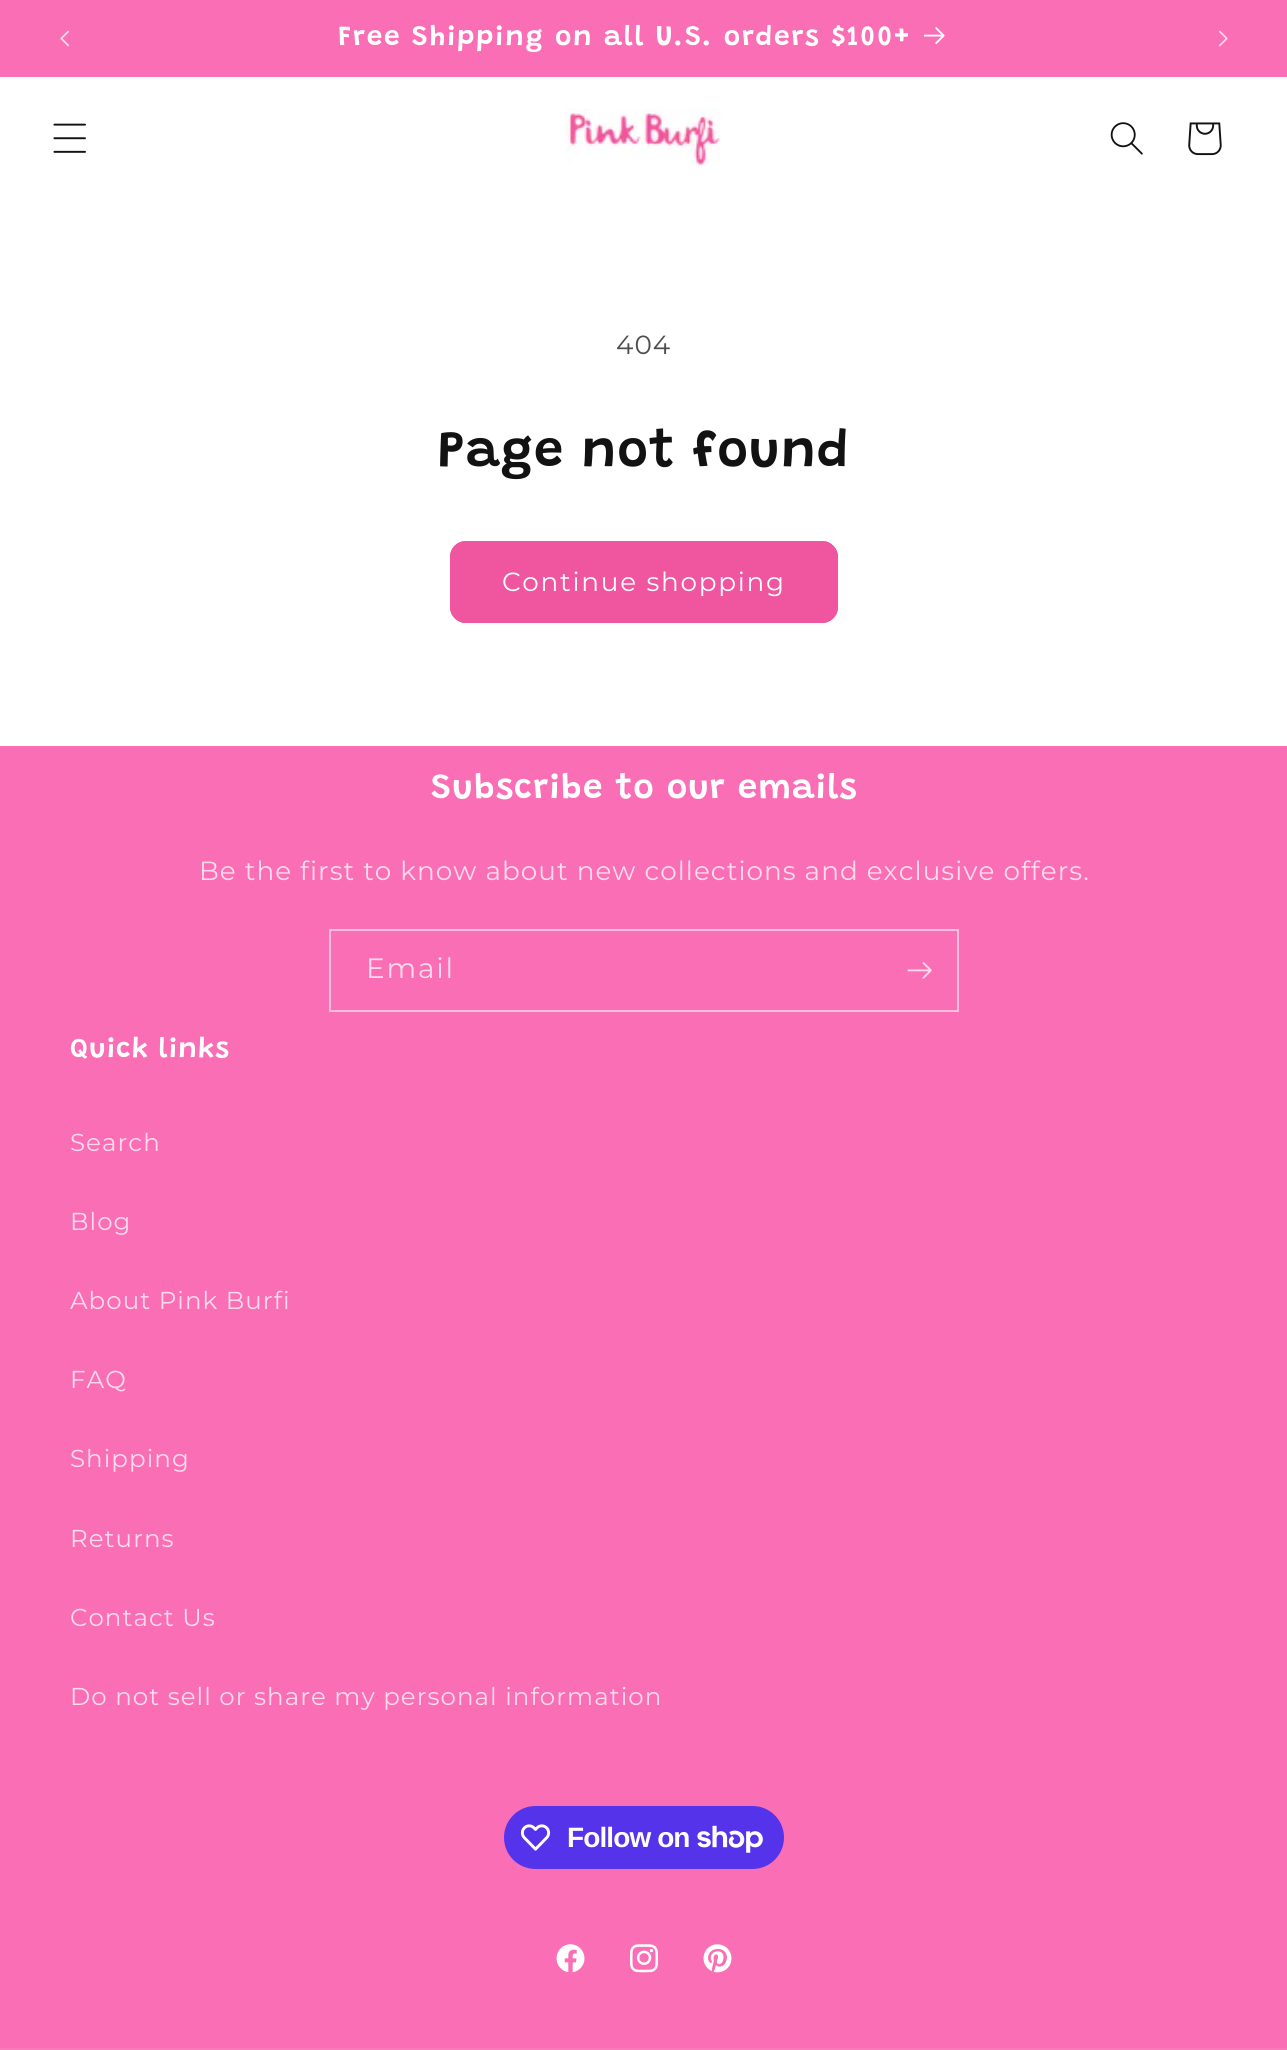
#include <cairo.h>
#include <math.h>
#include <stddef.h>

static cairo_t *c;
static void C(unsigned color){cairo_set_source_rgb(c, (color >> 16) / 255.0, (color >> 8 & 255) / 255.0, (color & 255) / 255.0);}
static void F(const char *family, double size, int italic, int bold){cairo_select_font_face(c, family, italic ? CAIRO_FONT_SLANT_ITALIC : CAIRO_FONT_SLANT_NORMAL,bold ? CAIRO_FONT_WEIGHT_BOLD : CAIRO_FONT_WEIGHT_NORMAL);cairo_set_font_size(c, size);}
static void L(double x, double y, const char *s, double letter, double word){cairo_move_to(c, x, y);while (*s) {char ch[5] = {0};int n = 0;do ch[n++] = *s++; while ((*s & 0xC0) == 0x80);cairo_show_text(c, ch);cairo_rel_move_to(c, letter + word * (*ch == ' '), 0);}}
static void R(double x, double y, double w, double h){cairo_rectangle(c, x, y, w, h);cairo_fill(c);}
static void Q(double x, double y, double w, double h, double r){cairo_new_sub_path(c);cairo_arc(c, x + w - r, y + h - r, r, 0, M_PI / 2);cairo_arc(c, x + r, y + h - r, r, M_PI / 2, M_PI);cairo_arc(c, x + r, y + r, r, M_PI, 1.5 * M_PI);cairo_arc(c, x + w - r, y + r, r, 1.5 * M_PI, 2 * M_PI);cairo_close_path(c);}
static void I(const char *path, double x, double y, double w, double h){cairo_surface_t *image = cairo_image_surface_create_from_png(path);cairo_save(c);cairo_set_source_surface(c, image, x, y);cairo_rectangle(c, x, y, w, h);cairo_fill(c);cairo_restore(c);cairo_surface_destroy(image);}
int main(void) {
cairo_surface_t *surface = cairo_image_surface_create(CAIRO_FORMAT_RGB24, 1287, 2050);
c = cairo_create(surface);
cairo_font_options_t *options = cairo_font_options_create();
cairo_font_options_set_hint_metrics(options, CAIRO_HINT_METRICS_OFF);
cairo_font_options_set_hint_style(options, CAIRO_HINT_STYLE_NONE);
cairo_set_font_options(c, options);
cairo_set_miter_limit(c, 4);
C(0xffffff);
cairo_paint(c);
C(0xf96eb4);
R(0,0,1287,77);
I("1.png",60,30,10,17);
F("Grandstander SemiBold",28,0,0);
C(0xffffff);
L(338,45,"Free Shipping on all U.S. orders $100+",1.75,0);
I("2.png",924,27,21,17);
I("3.png",1218,30,10,17);
I("4.png",53,123,33,30);
I("5.png",565,108,156,59);
I("6.png",1110,122,33,33);
I("7.png",1188,122,34,34);
F("Montserrat",26.25,0,0);
C(0x4d4d4d);
L(616,354,"404",1.05,0);
F("Grandstander SemiBold",52.5,0,0);
C(0x121212);
L(438,466,"Page not found",1.05,0);
C(0xef569f);
Q(450,541,388,82,16);
cairo_fill(c);
Q(451,542,386,80,15);
cairo_stroke(c);
F("Montserrat",26.25,0,0);
C(0xffffff);
L(502,591,"Continue shopping",1.75,0);
C(0xf96eb4);
R(0,746,1287,1302);
F("Grandstander SemiBold",35,0,0);
C(0xffffff);
L(431,798,"Subscribe to our emails",1.05,0);
F("Montserrat",26.25,0,0);
C(0xfedbec);
L(199,880,"Be the first to know about new collections and exclusive offers.",1.05,0);
cairo_rectangle(c,330,930,628,81);
C(0xfcbedd);
cairo_stroke(c);
F("Montserrat",28,0,0);
C(0xfedbec);
L(366,978,"Email",1.75,0);
I("8.png",907,962,25,17);
F("Grandstander SemiBold",28,0,0);
C(0xffffff);
L(70,1057,"Quick links",1.05,0);
F("Montserrat",24.5,0,0);
C(0xfedbec);
L(70,1151,"Search",1.05,0);
L(70,1230,"Blog",1.05,0);
L(70,1309,"About Pink Burfi",1.05,0);
L(70,1388,"FAQ",1.05,0);
L(70,1467,"Shipping",1.05,0);
L(70,1547,"Returns",1.05,0);
L(70,1626,"Contact Us",1.05,0);
L(70,1705,"Do not sell or share my personal information",1.05,0);
C(0x5433eb);
Q(504,1806,280,63,31.5);
cairo_fill(c);
I("9.png",520,1824,31,27);
F("Liberation Sans",28,0,1);
C(0xffffff);
L(567,1847,"Follow on",-.9,0);
I("10.png",697,1825,66,28);
I("11.png",556,1944,29,29);
I("12.png",630,1944,28,29);
I("13.png",703,1944,29,29);
C(0xf97aba);
R(0,2048,1287,2);
cairo_surface_write_to_png(surface, "o.png");
cairo_font_options_destroy(options);
cairo_destroy(c);
cairo_surface_destroy(surface);
return 0;
}
